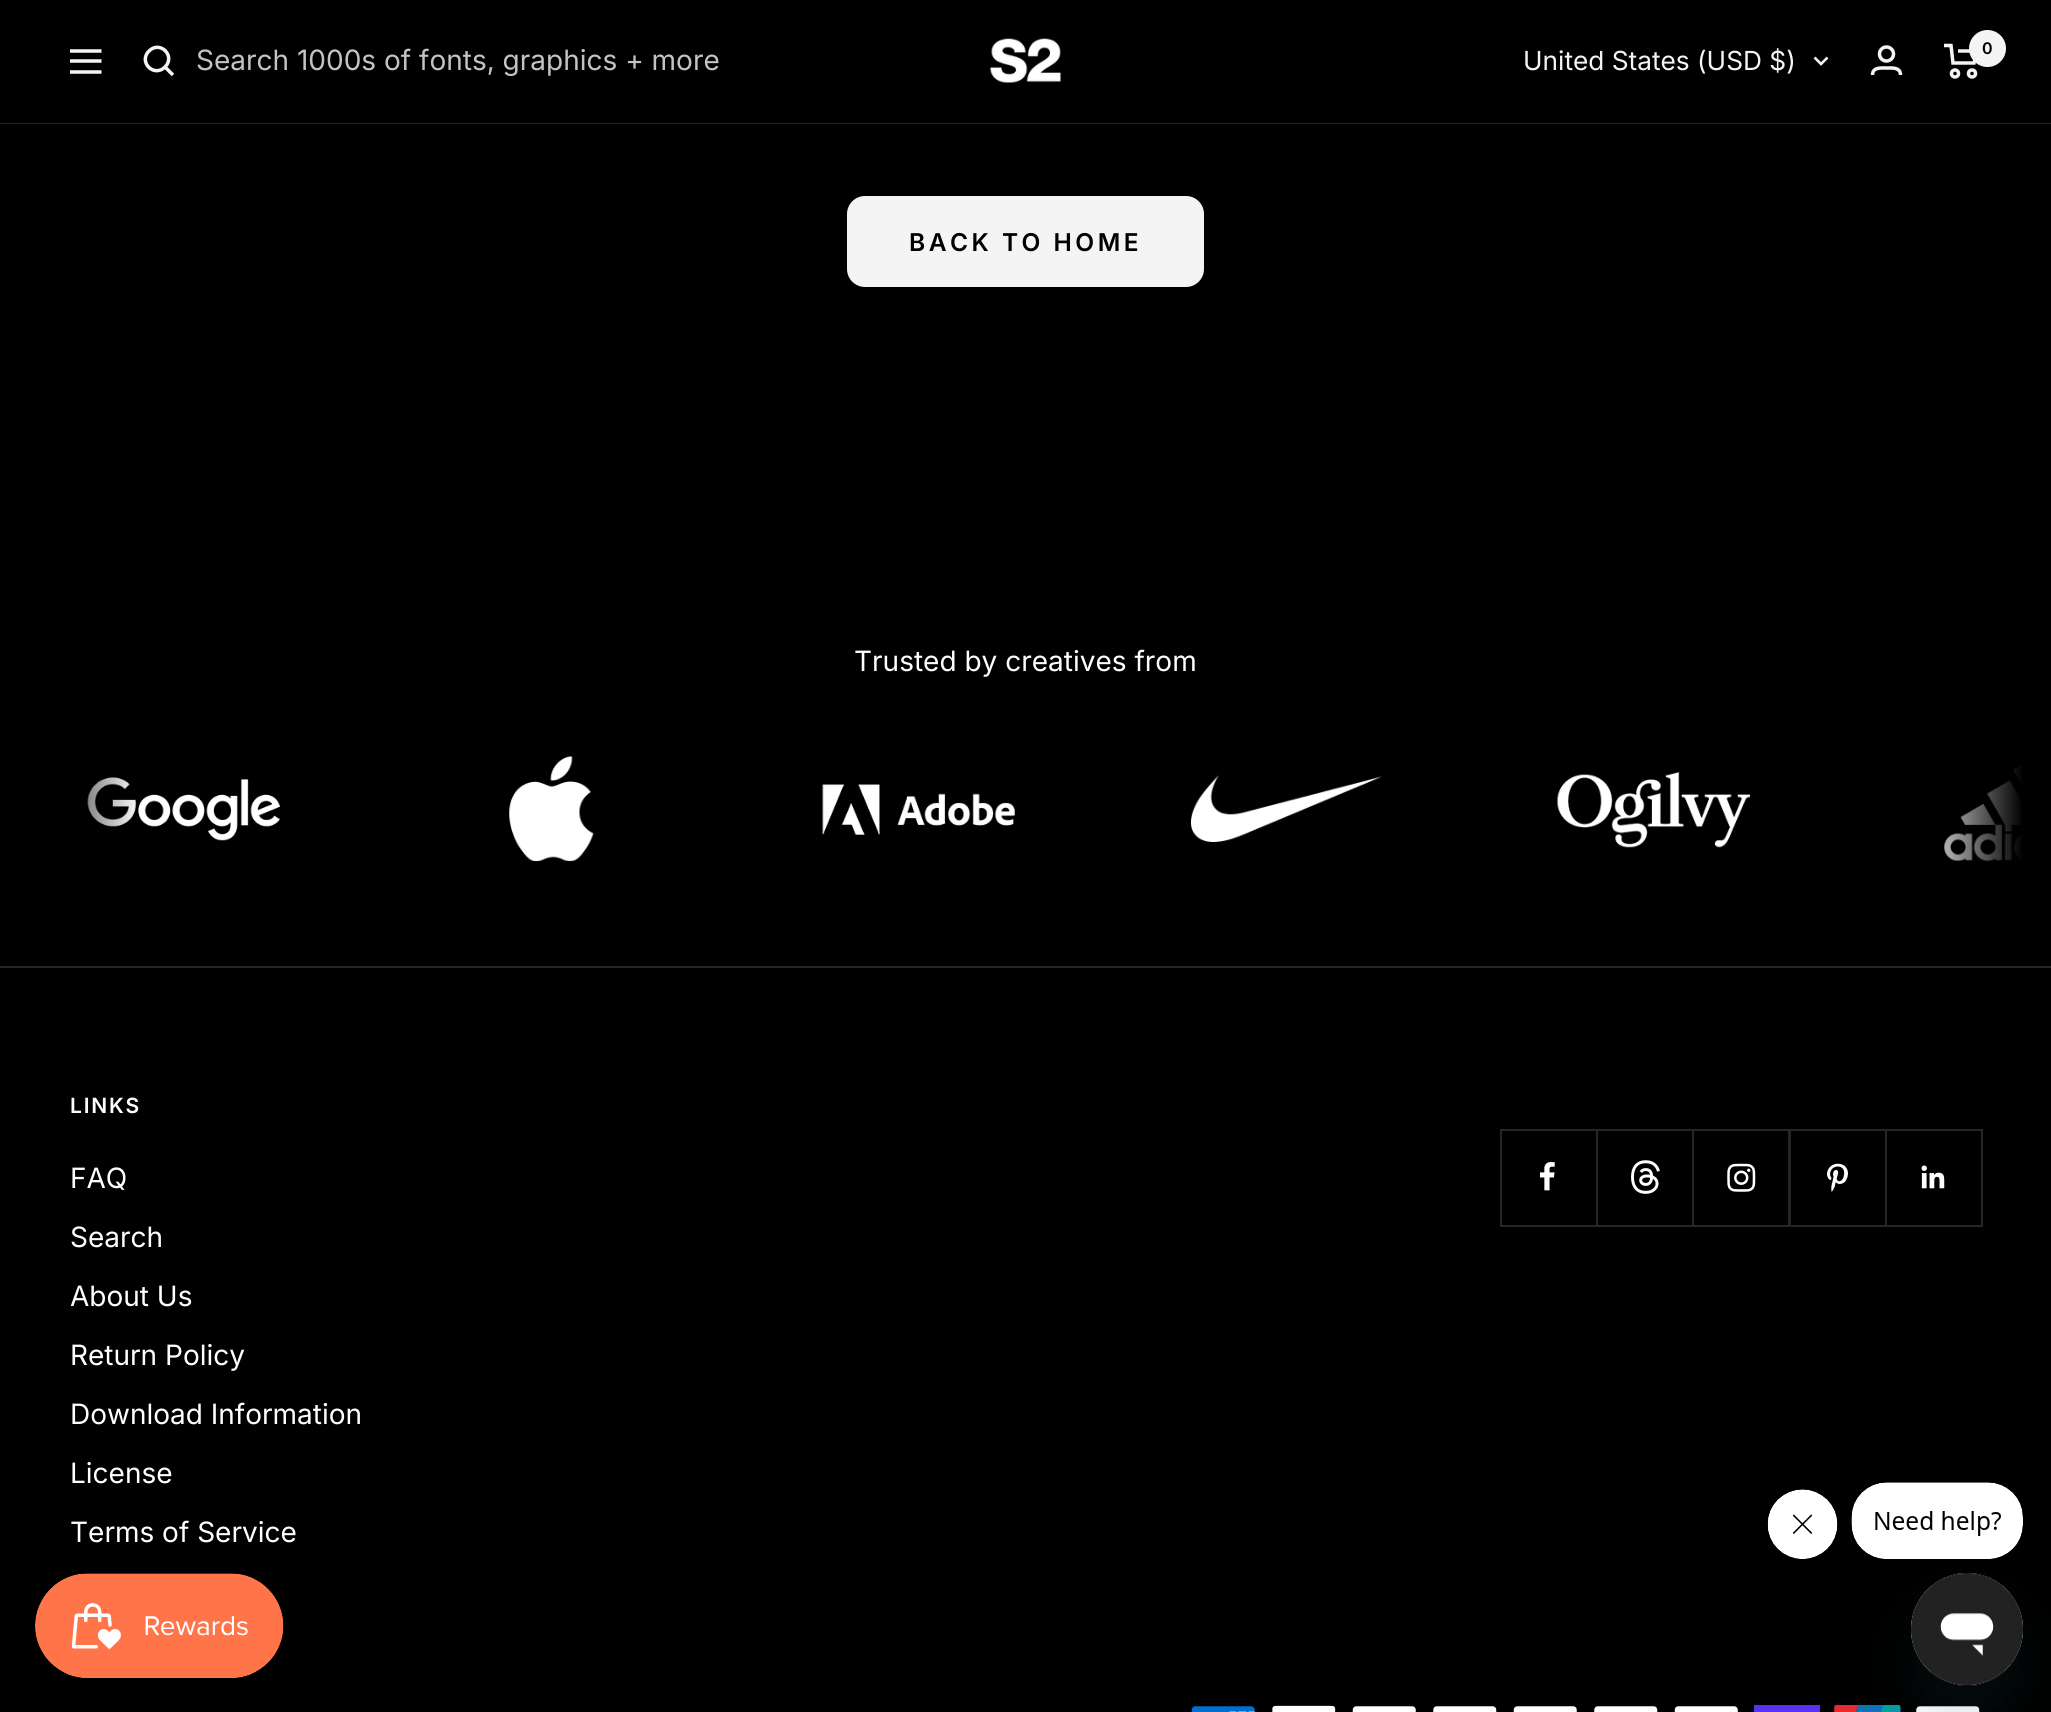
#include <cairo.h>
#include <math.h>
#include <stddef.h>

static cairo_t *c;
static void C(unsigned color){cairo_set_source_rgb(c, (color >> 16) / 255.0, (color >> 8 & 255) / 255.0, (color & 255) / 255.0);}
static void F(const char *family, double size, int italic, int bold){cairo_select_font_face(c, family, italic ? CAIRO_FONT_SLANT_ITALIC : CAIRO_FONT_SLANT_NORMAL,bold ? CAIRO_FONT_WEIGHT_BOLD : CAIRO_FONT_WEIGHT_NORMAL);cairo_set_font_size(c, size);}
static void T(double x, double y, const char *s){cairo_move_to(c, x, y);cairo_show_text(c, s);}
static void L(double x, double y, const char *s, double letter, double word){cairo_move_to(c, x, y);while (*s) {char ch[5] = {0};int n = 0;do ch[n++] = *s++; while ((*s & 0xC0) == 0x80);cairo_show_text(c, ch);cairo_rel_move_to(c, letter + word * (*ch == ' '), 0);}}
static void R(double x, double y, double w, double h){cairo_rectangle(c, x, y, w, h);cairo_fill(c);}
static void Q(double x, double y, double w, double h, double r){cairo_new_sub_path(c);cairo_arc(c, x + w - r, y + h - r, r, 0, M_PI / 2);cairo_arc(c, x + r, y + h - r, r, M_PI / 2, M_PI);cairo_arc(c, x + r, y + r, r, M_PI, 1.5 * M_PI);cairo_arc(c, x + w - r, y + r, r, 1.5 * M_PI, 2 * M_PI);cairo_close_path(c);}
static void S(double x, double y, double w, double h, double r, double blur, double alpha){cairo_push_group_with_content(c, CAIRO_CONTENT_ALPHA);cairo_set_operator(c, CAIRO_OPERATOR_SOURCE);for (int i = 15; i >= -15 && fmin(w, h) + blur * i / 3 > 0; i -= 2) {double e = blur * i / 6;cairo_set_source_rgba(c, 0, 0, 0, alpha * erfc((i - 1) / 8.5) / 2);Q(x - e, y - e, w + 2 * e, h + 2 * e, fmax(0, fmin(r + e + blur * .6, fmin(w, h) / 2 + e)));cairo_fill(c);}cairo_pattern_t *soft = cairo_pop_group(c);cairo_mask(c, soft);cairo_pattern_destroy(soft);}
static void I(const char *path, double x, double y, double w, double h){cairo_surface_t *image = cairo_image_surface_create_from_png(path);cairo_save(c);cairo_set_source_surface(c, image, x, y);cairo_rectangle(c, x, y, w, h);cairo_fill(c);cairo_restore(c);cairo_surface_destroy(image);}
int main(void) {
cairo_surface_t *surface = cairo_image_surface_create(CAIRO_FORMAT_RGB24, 2051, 1712);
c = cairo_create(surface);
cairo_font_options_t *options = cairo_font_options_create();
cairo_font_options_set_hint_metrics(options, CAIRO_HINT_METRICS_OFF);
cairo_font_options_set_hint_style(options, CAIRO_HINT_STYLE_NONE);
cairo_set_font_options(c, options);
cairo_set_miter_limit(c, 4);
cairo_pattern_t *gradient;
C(0x000000);
cairo_paint(c);
C(0x232324);
R(0,122,2051,2);
cairo_set_source_rgba(c,0,0,0,0.85);
R(0,122,2051,1);
cairo_new_path(c);
cairo_move_to(c,70,51);
cairo_line_to(c,101.5,51);
cairo_move_to(c,70,72);
cairo_line_to(c,101.5,72);
cairo_close_path(c);
cairo_move_to(c,70,61);
cairo_line_to(c,101.5,61);
cairo_close_path(c);
C(0xf4f4f4);
cairo_set_line_width(c,3.5);
cairo_stroke(c);
cairo_new_path(c);
cairo_move_to(c,165,67);
cairo_curve_to(c,176,56,160,40,149,51);
cairo_curve_to(c,138,62,154,78,165,67);
cairo_close_path(c);
cairo_move_to(c,165,67);
cairo_line_to(c,173,75);
cairo_stroke(c);
F("Inter",28,0,0);
C(0xc3c3c3);
T(196,70,"Search 1000s of fonts, graphics + more");
I("1.png",990,38,71,45);
F("Inter",26.25,0,0);
C(0xf4f4f4);
T(1523,70,"United States (USD $)");
cairo_new_path(c);
cairo_move_to(c,1814.5,57.5);
cairo_line_to(c,1821,64);
cairo_line_to(c,1827.5,57.5);
cairo_set_line_width(c,2.6);
cairo_stroke(c);
cairo_arc(c,1886.5,54,7,0,2 * M_PI);
cairo_set_line_width(c,3.5);
cairo_stroke(c);
cairo_new_path(c);
cairo_move_to(c,1872.5,75);
cairo_curve_to(c,1872.5,67,1881,68,1886.5,68);
cairo_curve_to(c,1892,68,1900.5,67,1900.5,75);
cairo_stroke(c);
cairo_new_path(c);
cairo_move_to(c,1944,45.5);
cairo_line_to(c,1951,45.5);
cairo_line_to(c,1953,63);
cairo_line_to(c,1974,63);
cairo_line_to(c,1977.5,51);
cairo_line_to(c,1958,51);
cairo_stroke(c);
cairo_arc(c,1955,73.5,3.5,0,2 * M_PI);
cairo_stroke(c);
cairo_arc(c,1972,73.5,3.5,0,2 * M_PI);
cairo_stroke(c);
cairo_arc(c,1987.5,48.5,18.5,0,2 * M_PI);
cairo_fill(c);
F("Inter SemiBold",16,0,0);
C(0x000000);
T(1982,54,"0");
C(0xf4f4f4);
Q(847,196,357,91,18);
cairo_fill(c);
F("Inter SemiBold",24.5,0,0);
C(0x000000);
L(909,251,"BACK TO HOME",3.5,0);
F("Inter",28,0,0);
C(0xffffff);
T(854,671,"Trusted by creatives from");
I("2.png",87,777,193,64);
I("3.png",509,756,85,106);
I("4.png",822,784,193,51);
I("5.png",1191,775,191,67);
I("6.png",1557,772,193,76);
I("7.png",1944,764,85,98);
gradient = cairo_pattern_create_linear(0,809,140,809);
cairo_pattern_add_color_stop_rgba(gradient,0,0,0,0,1);
cairo_pattern_add_color_stop_rgba(gradient,.2,0,0,0,1);
cairo_pattern_add_color_stop_rgba(gradient,1,0,0,0,0);
cairo_set_source(c,gradient);
cairo_pattern_destroy(gradient);
R(87,777,49,50);
gradient = cairo_pattern_create_linear(2051,809,1911,809);
cairo_pattern_add_color_stop_rgba(gradient,0,0,0,0,1);
cairo_pattern_add_color_stop_rgba(gradient,.2,0,0,0,1);
cairo_pattern_add_color_stop_rgba(gradient,1,0,0,0,0);
cairo_set_source(c,gradient);
cairo_pattern_destroy(gradient);
R(1944,764,85,97);
C(0x262626);
R(0,966,2051,2);
F("Inter SemiBold",21,0,0);
C(0xffffff);
L(70,1113,"LINKS",1.75,0);
F("Inter",28,0,0);
T(70,1188,"FAQ");
T(70,1247,"Search");
T(70,1306,"About Us");
T(70,1365,"Return Policy");
T(70,1424,"Download Information");
T(70,1483,"License");
T(70,1542,"Terms of Service");
C(0x262626);
cairo_new_path(c);
cairo_move_to(c,1502,1225);
cairo_line_to(c,1502,1227);
cairo_line_to(c,1598,1227);
cairo_line_to(c,1598,1131);
cairo_line_to(c,1596,1131);
cairo_line_to(c,1596,1225);
cairo_close_path(c);
cairo_fill(c);
R(1500,1225,2,2);
R(1500,1129,98,2);
R(1500,1129,2,96);
I("8.png",1540,1162,15,29);
cairo_new_path(c);
cairo_move_to(c,1598,1225);
cairo_line_to(c,1598,1227);
cairo_line_to(c,1694,1227);
cairo_line_to(c,1694,1131);
cairo_line_to(c,1692,1131);
cairo_line_to(c,1692,1225);
cairo_close_path(c);
cairo_fill(c);
R(1596,1129,98,2);
I("9.png",1631,1160,29,34);
cairo_new_path(c);
cairo_move_to(c,1694,1225);
cairo_line_to(c,1694,1227);
cairo_line_to(c,1790,1227);
cairo_line_to(c,1790,1131);
cairo_line_to(c,1788,1131);
cairo_line_to(c,1788,1225);
cairo_close_path(c);
cairo_fill(c);
R(1692,1129,97,2);
I("10.png",1727,1163,29,29);
cairo_new_path(c);
cairo_move_to(c,1790,1225);
cairo_line_to(c,1790,1227);
cairo_line_to(c,1887,1227);
cairo_line_to(c,1887,1131);
cairo_line_to(c,1885,1131);
cairo_line_to(c,1885,1225);
cairo_close_path(c);
cairo_fill(c);
R(1789,1129,98,2);
R(1790,1129,1,96);
I("11.png",1827,1163,21,29);
cairo_new_path(c);
cairo_move_to(c,1887,1225);
cairo_line_to(c,1887,1227);
cairo_line_to(c,1983,1227);
cairo_line_to(c,1983,1131);
cairo_line_to(c,1981,1131);
cairo_line_to(c,1981,1225);
cairo_close_path(c);
cairo_fill(c);
R(1885,1129,98,2);
I("12.png",1921,1165,24,24);
I("13.png",1191,1706,64,6);
I("14.png",1272,1705,64,7);
I("15.png",1352,1706,64,6);
I("16.png",1433,1706,64,6);
I("15.png",1513,1706,64,6);
I("16.png",1594,1706,64,6);
I("15.png",1674,1706,64,6);
C(0x5a31f4);
R(1754,1705,66,7);
I("17.png",1834,1705,67,7);
I("16.png",1916,1706,64,6);
I("18.png",35,1573,249,105);
I("19.png",1767,1489,71,70);
I("20.png",1851,1482,172,77);
C(0x17494d);
S(1911,1608,112,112,56,26,.15);
I("21.png",1911,1573,112,113);
cairo_surface_write_to_png(surface, "o.png");
cairo_font_options_destroy(options);
cairo_destroy(c);
cairo_surface_destroy(surface);
return 0;
}
